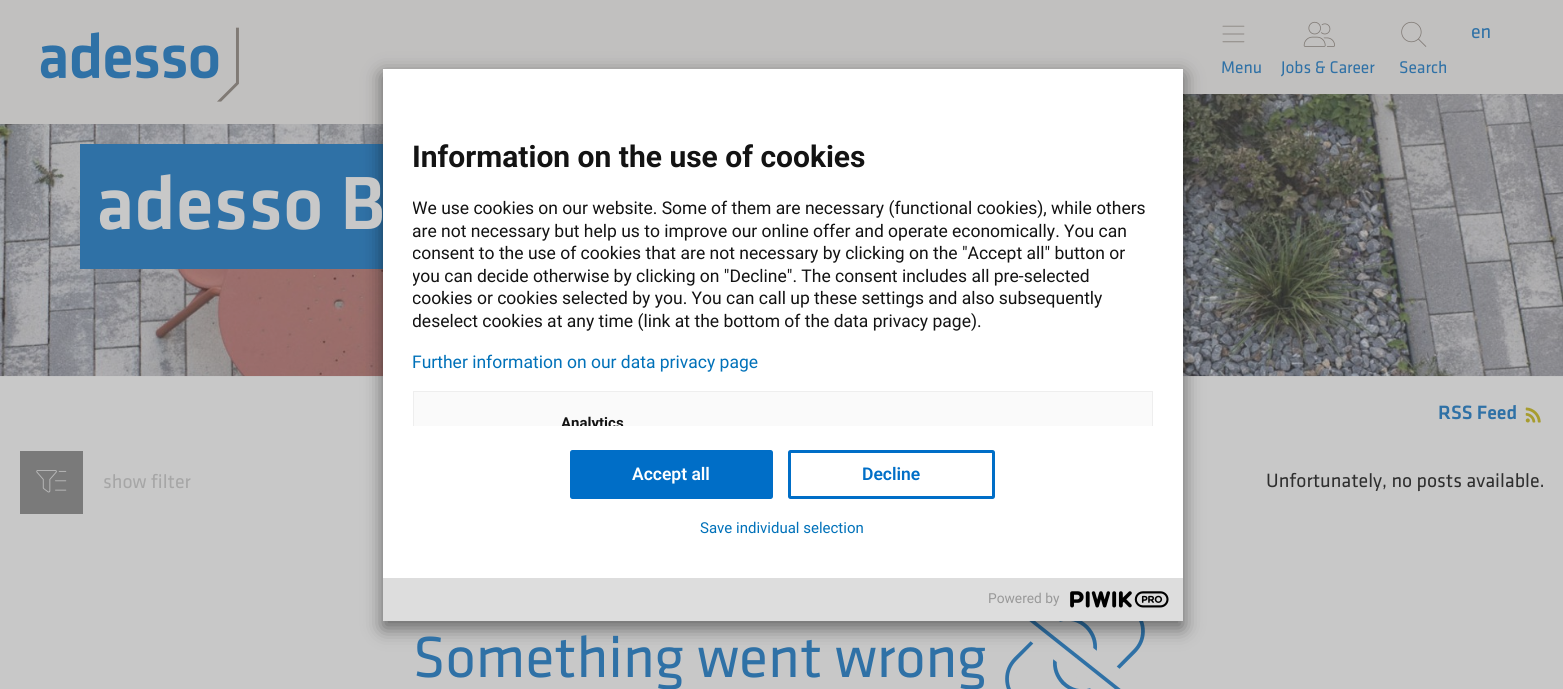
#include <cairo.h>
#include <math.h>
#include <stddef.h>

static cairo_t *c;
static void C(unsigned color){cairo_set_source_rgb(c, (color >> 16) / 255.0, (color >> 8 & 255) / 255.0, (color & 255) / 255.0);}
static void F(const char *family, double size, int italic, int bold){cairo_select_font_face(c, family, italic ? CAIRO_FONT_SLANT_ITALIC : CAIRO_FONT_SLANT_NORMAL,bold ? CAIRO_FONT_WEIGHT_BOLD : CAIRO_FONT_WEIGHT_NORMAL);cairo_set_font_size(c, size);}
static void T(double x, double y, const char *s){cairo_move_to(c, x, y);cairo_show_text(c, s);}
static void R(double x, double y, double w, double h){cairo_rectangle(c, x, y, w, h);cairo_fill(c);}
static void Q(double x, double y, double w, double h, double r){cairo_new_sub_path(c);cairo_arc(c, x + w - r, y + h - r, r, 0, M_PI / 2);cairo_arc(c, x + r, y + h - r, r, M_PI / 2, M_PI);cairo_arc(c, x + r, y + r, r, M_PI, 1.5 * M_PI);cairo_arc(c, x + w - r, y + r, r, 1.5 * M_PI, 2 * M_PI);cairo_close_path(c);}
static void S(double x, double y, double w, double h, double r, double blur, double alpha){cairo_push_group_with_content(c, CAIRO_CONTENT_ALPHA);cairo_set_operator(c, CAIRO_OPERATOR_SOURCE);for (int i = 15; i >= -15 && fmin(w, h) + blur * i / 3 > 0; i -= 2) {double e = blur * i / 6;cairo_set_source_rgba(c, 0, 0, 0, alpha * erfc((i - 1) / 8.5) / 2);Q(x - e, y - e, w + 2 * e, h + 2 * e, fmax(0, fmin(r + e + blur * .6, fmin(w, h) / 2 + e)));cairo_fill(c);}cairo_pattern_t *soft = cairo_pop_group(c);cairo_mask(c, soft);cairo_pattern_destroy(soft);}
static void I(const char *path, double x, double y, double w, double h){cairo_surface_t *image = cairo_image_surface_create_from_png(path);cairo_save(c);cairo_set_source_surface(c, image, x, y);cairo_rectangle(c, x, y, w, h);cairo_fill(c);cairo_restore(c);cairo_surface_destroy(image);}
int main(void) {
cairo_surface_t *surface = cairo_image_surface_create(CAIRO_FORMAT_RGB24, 1563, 689);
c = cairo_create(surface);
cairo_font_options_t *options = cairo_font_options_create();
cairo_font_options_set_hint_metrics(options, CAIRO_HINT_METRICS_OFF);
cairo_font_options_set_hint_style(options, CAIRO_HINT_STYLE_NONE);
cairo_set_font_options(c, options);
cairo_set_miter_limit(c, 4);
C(0xc8c8c8);
cairo_paint(c);
C(0xc1c0bf);
R(0,0,1563,94);
I("6.png",0,94,1563,283);
cairo_new_path(c);
cairo_move_to(c,-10,92);
cairo_line_to(c,878,92);
cairo_line_to(c,846,124);
cairo_line_to(c,-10,124);
cairo_close_path(c);
cairo_fill(c);
I("1.png",40,27,199,75);
F("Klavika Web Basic",20,0,0);
C(0x2f71a6);
T(1471,38,"en");
I("2.png",1222,25,23,18);
F("Klavika Web Basic",17.5,0,0);
T(1221,73,"Menu");
I("3.png",1303,21,32,26);
T(1281,73,"Jobs & Career");
I("4.png",1401,21,26,26);
T(1399,73,"Search");
R(80,144,303,125);
I("9.png",1005,621,140,68);
C(0x000000);
S(383,75,800,553,0,9.5,.5);
C(0xffffff);
R(383,69,800,509);
F("Roboto",30,0,1);
C(0x131313);
T(412,167,"Information on the use of cookies");
cairo_save(c);
cairo_rectangle(c,413,99,740,327);
cairo_clip(c);
F("Roboto",17.5,0,0);
T(412,214,"We use cookies on our website. Some of them are necessary (functional cookies), while others");
cairo_restore(c);
F("Roboto",17.5,0,0);
T(412,237,"are not necessary but help us to improve our online offer and operate economically. You can");
cairo_save(c);
cairo_rectangle(c,413,99,740,327);
cairo_clip(c);
T(412,259,"consent to the use of cookies that are not necessary by clicking on the \"Accept all\" button or");
T(412,282,"you can decide otherwise by clicking on \"Decline\". The consent includes all pre-selected");
T(412,304,"cookies or cookies selected by you. You can call up these settings and also subsequently");
T(412,327,"deselect cookies at any time (link at the bottom of the data privacy page).");
cairo_restore(c);
C(0x0071b9);
T(412,368,"Further information on our data privacy page");
C(0xfafafa);
R(414,392,738,34);
C(0x006ec7);
Q(570,450,203,49,2.5);
cairo_fill(c);
Q(789.5,451.5,204,46,1);
cairo_set_line_width(c,3);
cairo_stroke(c);
cairo_save(c);
cairo_rectangle(c,413,391,740,35);
cairo_clip(c);
cairo_rectangle(c,413.5,391.5,739,102);
C(0xeeeeee);
cairo_set_line_width(c,1);
cairo_stroke(c);
F("Roboto",15,0,1);
C(0x131313);
T(561,428,"Analytics");
cairo_restore(c);
F("Roboto SemiBold",17.5,0,0);
C(0xffffff);
T(632,480,"Accept all");
C(0x006ec7);
T(862,480,"Decline");
F("Roboto",15,0,0);
C(0x0071b9);
T(700,533,"Save individual selection");
C(0xdddddd);
R(383,578,800,43);
F("Roboto",13.75,0,0);
C(0x999999);
T(988,603,"Powered by");
I("5.png",1070,591,99,17);
F("Klavika Web Basic Medium",78,0,0);
C(0xc8c8c8);
T(96,229,"adesso B");
F("Klavika Web Basic Medium",20,0,0);
C(0x2f71a6);
T(1438,419,"RSS Feed");
I("7.png",1525,407,16,16);
C(0x7a7a7a);
R(20,451,63,63);
I("8.png",36,470,31,23);
F("Klavika Web Basic",20,0,0);
C(0xa6a6a6);
T(103,488,"show filter");
C(0x2f2f2f);
T(1266,487,"Unfortunately, no posts available.");
F("Klavika Web Basic",60,0,0);
C(0x2f71a6);
T(413,677,"Something went wrong");
cairo_surface_write_to_png(surface, "o.png");
cairo_font_options_destroy(options);
cairo_destroy(c);
cairo_surface_destroy(surface);
return 0;
}
